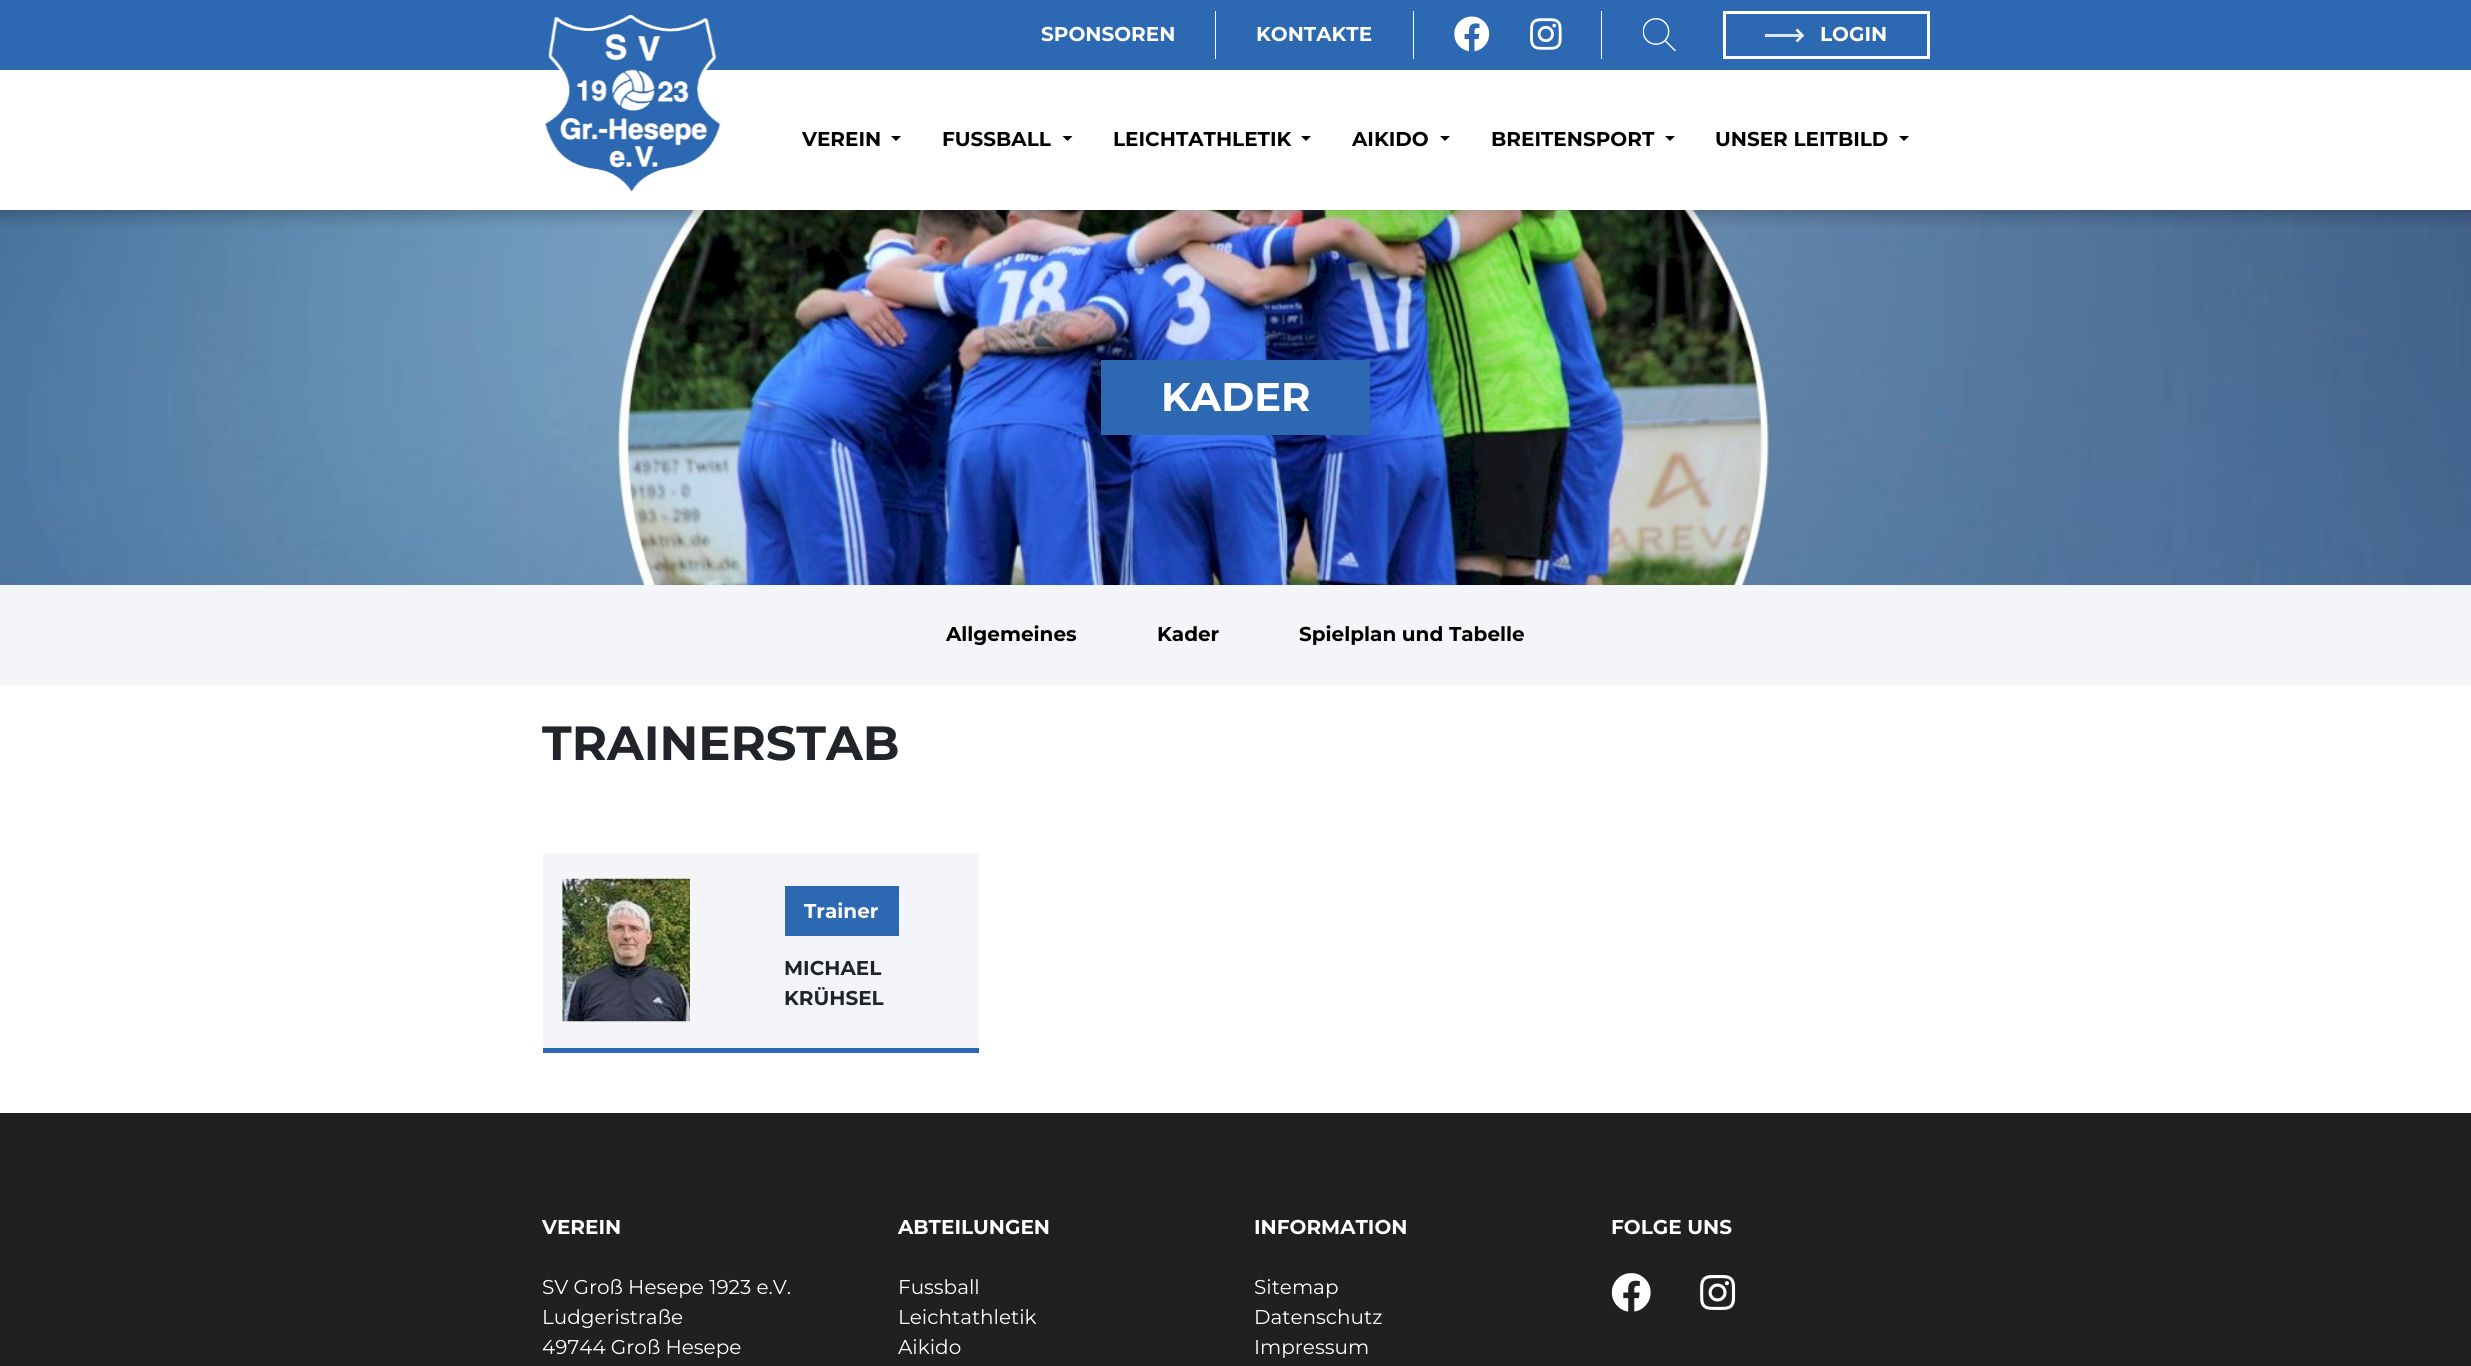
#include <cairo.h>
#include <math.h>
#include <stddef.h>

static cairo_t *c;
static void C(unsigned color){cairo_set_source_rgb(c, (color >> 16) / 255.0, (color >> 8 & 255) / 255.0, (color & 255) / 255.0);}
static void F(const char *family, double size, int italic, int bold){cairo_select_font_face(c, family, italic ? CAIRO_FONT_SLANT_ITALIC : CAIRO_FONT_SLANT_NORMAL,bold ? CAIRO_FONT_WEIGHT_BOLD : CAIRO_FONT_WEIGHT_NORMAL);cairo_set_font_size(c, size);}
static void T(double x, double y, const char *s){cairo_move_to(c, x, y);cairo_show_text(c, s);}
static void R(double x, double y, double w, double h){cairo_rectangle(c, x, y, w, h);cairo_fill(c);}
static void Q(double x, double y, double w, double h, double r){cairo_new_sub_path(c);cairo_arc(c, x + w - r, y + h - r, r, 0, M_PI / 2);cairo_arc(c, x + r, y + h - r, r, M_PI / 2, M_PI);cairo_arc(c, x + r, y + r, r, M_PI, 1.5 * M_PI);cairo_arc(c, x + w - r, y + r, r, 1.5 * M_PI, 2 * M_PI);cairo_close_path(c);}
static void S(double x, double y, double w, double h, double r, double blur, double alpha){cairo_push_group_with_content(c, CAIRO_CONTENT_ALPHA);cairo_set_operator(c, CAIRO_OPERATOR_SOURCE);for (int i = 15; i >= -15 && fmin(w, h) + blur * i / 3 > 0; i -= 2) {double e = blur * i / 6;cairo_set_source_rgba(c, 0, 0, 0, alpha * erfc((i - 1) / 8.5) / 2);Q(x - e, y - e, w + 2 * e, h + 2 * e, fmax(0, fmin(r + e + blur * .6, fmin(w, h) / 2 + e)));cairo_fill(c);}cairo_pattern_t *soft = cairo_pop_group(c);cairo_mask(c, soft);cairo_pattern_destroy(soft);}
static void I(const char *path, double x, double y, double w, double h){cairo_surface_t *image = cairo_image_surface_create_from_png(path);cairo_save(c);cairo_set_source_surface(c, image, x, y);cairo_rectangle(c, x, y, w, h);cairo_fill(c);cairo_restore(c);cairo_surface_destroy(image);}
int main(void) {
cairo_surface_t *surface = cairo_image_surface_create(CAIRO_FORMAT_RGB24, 2471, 1366);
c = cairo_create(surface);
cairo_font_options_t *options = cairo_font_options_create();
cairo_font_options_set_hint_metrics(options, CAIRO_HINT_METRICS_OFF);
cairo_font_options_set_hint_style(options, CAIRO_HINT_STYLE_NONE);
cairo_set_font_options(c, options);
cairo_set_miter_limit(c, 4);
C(0xffffff);
cairo_paint(c);
I("5.png",0,210,2471,375);
cairo_save(c);
cairo_rectangle(c,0,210,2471,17);
cairo_clip(c);
C(0x000000);
S(-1,0,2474,213,0,9.5,.3);
cairo_restore(c);
C(0x2d69b2);
R(0,0,2471,70);
F("Montserrat Thin",20,0,0);
C(0xffffff);
T(1041,41,"SPONSOREN");
R(1215,11,1,48);
T(1256,41,"KONTAKTE");
R(1413,11,1,48);
I("1.png",1454,16,36,36);
I("2.png",1530,18,32,32);
R(1601,11,1,48);
I("3.png",1643,18,33,33);
cairo_rectangle(c,1724.5,12.5,204,45);
cairo_set_line_width(c,3);
cairo_stroke(c);
C(0xdce6f2);
R(1765,34,38,3);
cairo_new_path(c);
cairo_move_to(c,1796.5,29.5);
cairo_line_to(c,1802.5,35.5);
cairo_line_to(c,1796.5,41.5);
C(0xffffff);
cairo_set_line_width(c,2.5);
cairo_stroke(c);
T(1820,41,"LOGIN");
I("4.png",545,15,176,177);
C(0x000000);
T(802,146,"VEREIN");
cairo_new_path(c);
cairo_move_to(c,891,136);
cairo_line_to(c,901,136);
cairo_line_to(c,896,141);
cairo_close_path(c);
cairo_fill(c);
T(942,146,"FUSSBALL");
cairo_new_path(c);
cairo_move_to(c,1062.5,136);
cairo_line_to(c,1072.5,136);
cairo_line_to(c,1067.5,141);
cairo_close_path(c);
cairo_fill(c);
T(1113,146,"LEICHTATHLETIK");
cairo_new_path(c);
cairo_move_to(c,1301,136);
cairo_line_to(c,1311,136);
cairo_line_to(c,1306,141);
cairo_close_path(c);
cairo_fill(c);
T(1352,146,"AIKIDO");
cairo_new_path(c);
cairo_move_to(c,1440,136);
cairo_line_to(c,1450,136);
cairo_line_to(c,1445,141);
cairo_close_path(c);
cairo_fill(c);
T(1491,146,"BREITENSPORT");
cairo_new_path(c);
cairo_move_to(c,1665,136);
cairo_line_to(c,1675,136);
cairo_line_to(c,1670,141);
cairo_close_path(c);
cairo_fill(c);
T(1715,146,"UNSER LEITBILD");
cairo_new_path(c);
cairo_move_to(c,1899,136);
cairo_line_to(c,1909,136);
cairo_line_to(c,1904,141);
cairo_close_path(c);
cairo_fill(c);
C(0x2d69b2);
R(1101,360,269,75);
F("Montserrat Thin",40,0,0);
C(0xffffff);
T(1161,411,"KADER");
C(0xf4f5f8);
R(0,585,2471,100);
F("Montserrat Thin",20,0,0);
C(0x000000);
T(946,641,"Allgemeines");
T(1157,641,"Kader");
T(1299,641,"Spielplan und Tabelle");
F("Montserrat Thin",48,0,0);
C(0x212529);
T(542,760,"TRAINERSTAB");
C(0xf4f5f8);
R(543,853,436,195);
C(0x2d69b2);
R(543,1048,436,5);
I("6.png",562,878,128,144);
R(785,886,114,50);
F("Montserrat Thin",20,0,0);
C(0xffffff);
T(804,918,"Trainer");
C(0x212529);
T(784,975,"MICHAEL");
T(784,1005,"KRÜHSEL");
C(0x202020);
R(0,1113,2471,253);
C(0xffffff);
T(542,1234,"VEREIN");
F("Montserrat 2 Thin",20,0,0);
T(542,1294,"SV Groß Hesepe 1923 e.V.");
T(542,1324,"Ludgeristraße");
T(542,1354,"49744 Groß Hesepe");
F("Montserrat Thin",20,0,0);
T(898,1234,"ABTEILUNGEN");
F("Montserrat 2 Thin",20,0,0);
T(898,1294,"Fussball");
T(898,1324,"Leichtathletik");
T(898,1354,"Aikido");
F("Montserrat Thin",20,0,0);
T(1254,1234,"INFORMATION");
F("Montserrat 2 Thin",20,0,0);
T(1254,1294,"Sitemap");
T(1254,1324,"Datenschutz");
T(1254,1354,"Impressum");
F("Montserrat Thin",20,0,0);
T(1611,1234,"FOLGE UNS");
I("7.png",1611,1273,40,39);
I("8.png",1700,1275,36,35);
cairo_surface_write_to_png(surface, "o.png");
cairo_font_options_destroy(options);
cairo_destroy(c);
cairo_surface_destroy(surface);
return 0;
}
